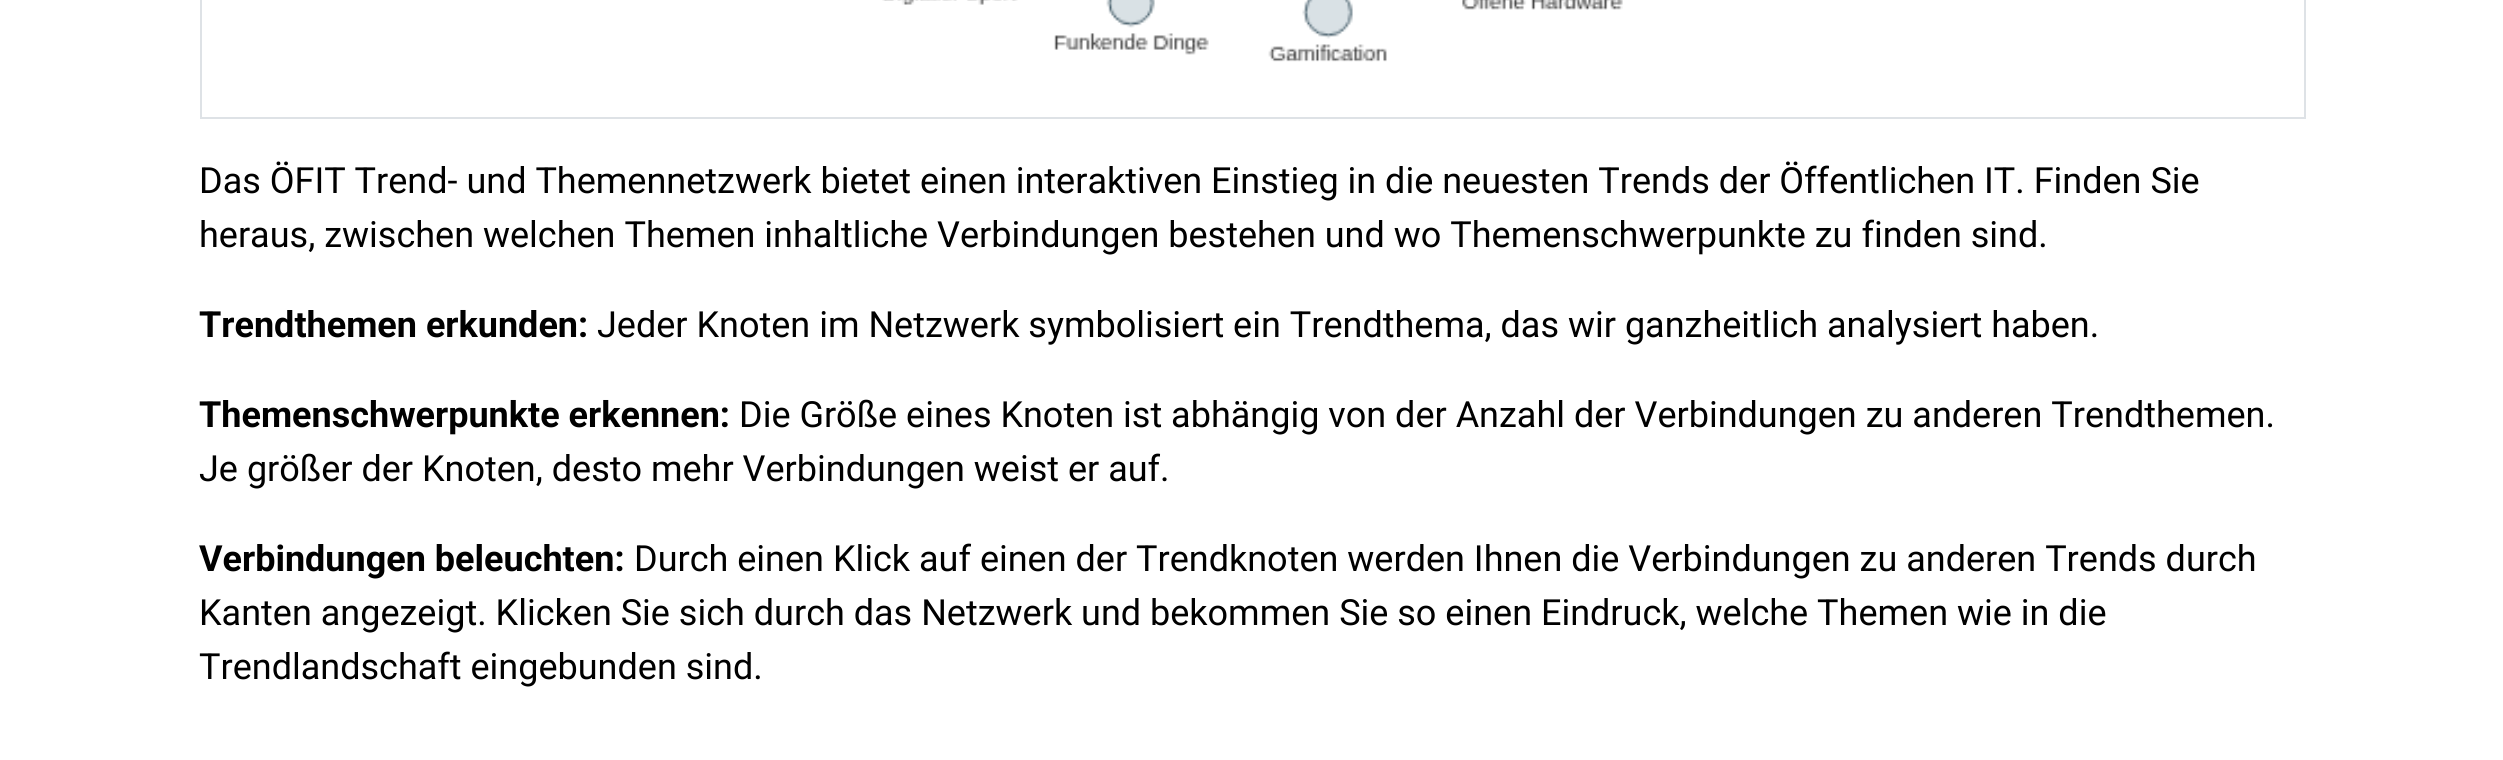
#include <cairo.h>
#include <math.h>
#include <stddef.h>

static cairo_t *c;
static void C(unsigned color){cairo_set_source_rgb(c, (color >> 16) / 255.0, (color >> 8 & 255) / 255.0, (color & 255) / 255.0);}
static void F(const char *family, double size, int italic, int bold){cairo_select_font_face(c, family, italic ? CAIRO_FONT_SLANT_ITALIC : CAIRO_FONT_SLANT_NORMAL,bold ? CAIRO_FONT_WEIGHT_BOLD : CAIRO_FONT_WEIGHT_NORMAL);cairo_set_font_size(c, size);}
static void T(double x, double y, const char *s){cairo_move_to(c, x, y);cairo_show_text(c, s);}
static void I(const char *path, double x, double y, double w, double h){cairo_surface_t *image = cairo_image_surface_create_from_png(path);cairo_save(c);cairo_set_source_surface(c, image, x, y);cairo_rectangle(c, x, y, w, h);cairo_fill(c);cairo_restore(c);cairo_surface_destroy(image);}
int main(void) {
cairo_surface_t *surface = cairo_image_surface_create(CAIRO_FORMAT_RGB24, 2503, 760);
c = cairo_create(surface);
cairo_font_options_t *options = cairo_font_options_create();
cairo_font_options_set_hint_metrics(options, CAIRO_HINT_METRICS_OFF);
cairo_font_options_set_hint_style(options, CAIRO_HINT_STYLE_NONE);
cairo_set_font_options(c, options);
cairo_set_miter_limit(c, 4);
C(0xffffff);
cairo_paint(c);
cairo_rectangle(c,201,-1,2104,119);
C(0xdee2e6);
cairo_stroke(c);
I("1.png",882,0,741,62);
F("Roboto",36,0,0);
C(0x000000);
T(199,193,"Das ÖFIT Trend- und Themennetzwerk bietet einen interaktiven Einstieg in die neuesten Trends der Öffentlichen IT. Finden Sie");
T(199,247,"heraus, zwischen welchen Themen inhaltliche Verbindungen bestehen und wo Themenschwerpunkte zu finden sind.");
F("Roboto",36,0,1);
T(199,337,"Trendthemen erkunden:");
F("Roboto",36,0,0);
T(597,337,"Jeder Knoten im Netzwerk symbolisiert ein Trendthema, das wir ganzheitlich analysiert haben.");
F("Roboto",36,0,1);
T(199,427,"Themenschwerpunkte erkennen:");
F("Roboto",36,0,0);
T(739,427,"Die Größe eines Knoten ist abhängig von der Anzahl der Verbindungen zu anderen Trendthemen.");
T(199,481,"Je größer der Knoten, desto mehr Verbindungen weist er auf.");
F("Roboto",36,0,1);
T(199,571,"Verbindungen beleuchten:");
F("Roboto",36,0,0);
T(634,571,"Durch einen Klick auf einen der Trendknoten werden Ihnen die Verbindungen zu anderen Trends durch");
T(199,625,"Kanten angezeigt. Klicken Sie sich durch das Netzwerk und bekommen Sie so einen Eindruck, welche Themen wie in die");
T(199,679,"Trendlandschaft eingebunden sind.");
cairo_surface_write_to_png(surface, "o.png");
cairo_font_options_destroy(options);
cairo_destroy(c);
cairo_surface_destroy(surface);
return 0;
}
